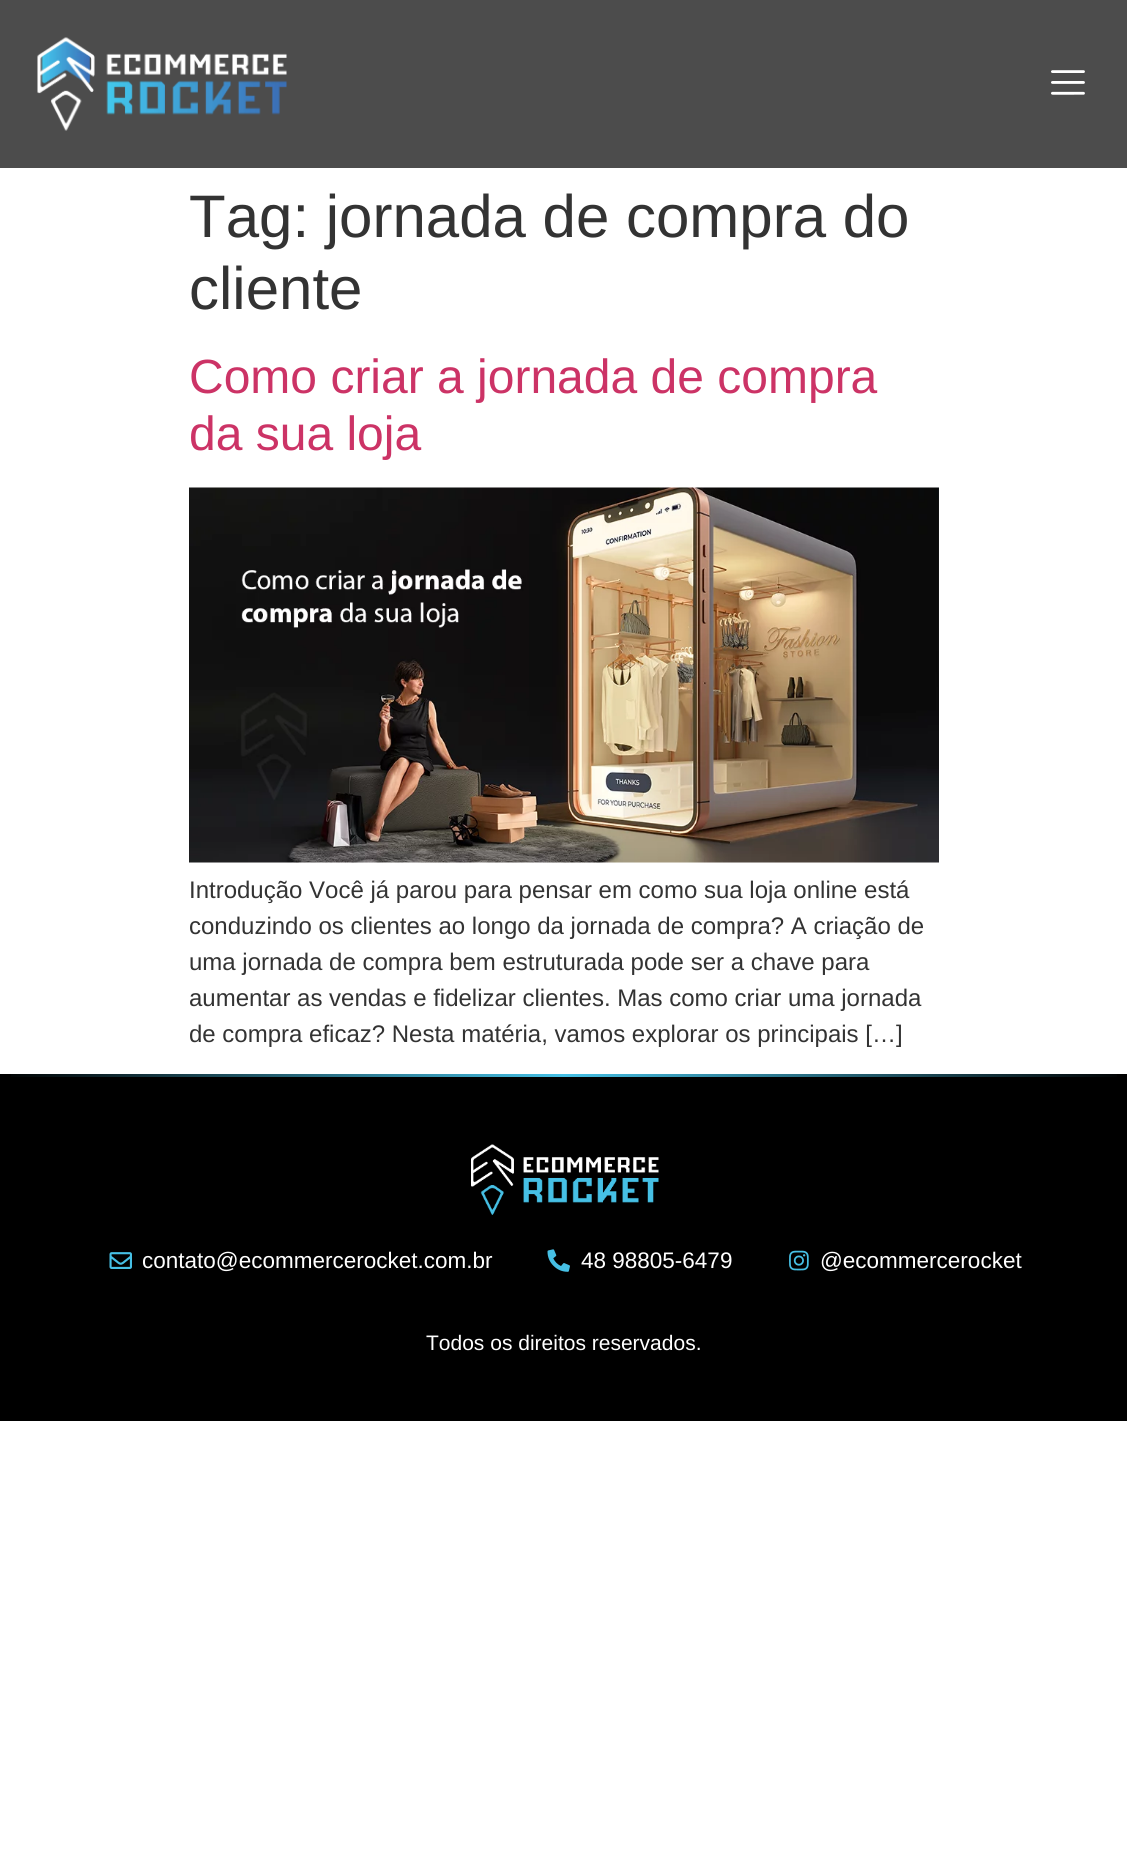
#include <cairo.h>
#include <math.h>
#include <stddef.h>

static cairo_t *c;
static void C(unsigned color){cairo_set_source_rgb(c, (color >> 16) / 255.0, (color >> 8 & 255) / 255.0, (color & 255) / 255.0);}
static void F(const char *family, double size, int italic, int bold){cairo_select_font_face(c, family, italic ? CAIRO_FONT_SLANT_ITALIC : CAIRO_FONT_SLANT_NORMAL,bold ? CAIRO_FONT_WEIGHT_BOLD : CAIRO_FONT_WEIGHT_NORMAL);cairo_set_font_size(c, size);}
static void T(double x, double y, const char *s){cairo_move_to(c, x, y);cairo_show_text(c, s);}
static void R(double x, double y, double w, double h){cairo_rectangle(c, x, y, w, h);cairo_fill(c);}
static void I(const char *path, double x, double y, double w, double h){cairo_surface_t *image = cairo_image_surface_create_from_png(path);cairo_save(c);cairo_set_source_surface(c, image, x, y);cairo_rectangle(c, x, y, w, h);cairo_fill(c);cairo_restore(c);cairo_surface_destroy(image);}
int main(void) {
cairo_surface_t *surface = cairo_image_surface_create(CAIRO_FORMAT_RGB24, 1127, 1863);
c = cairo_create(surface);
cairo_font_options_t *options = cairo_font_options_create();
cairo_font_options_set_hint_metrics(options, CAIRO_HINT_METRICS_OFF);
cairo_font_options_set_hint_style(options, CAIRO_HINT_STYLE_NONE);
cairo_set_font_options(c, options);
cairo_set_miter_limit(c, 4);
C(0xffffff);
cairo_paint(c);
C(0x4c4c4c);
R(0,0,1127,168);
I("1.png",37,37,250,94);
I("2.png",1051,70,34,25);
F("Liberation Sans",60,0,0);
C(0x333333);
T(189,237,"Tag: jornada de compra do");
T(189,309,"cliente");
F("Liberation Sans",48,0,0);
C(0xcc3366);
T(189,393,"Como criar a jornada de compra");
T(189,450,"da sua loja");
I("3.png",189,487,750,376);
F("Liberation Sans",24,0,0);
C(0x333333);
T(189,898,"Introdução Você já parou para pensar em como sua loja online está");
T(189,934,"conduzindo os clientes ao longo da jornada de compra? A criação de");
T(189,970,"uma jornada de compra bem estruturada pode ser a chave para");
T(189,1006,"aumentar as vendas e fidelizar clientes. Mas como criar uma jornada");
T(189,1042,"de compra eficaz? Nesta matéria, vamos explorar os principais […]");
C(0x000000);
R(0,1074,1127,347);
I("4.png",11,1074,1106,3);
I("5.png",471,1144,188,71);
I("6.png",109,1252,23,17);
F("Liberation Sans",22.5,0,0);
C(0xffffff);
T(142,1268,"contato@ecommercerocket.com.br");
I("7.png",547,1249,23,23);
T(581,1268,"48 98805-6479");
I("8.png",789,1250,20,21);
T(820,1268,"@ecommercerocket");
F("Liberation Sans",21,0,0);
T(426,1350,"Todos os direitos reservados.");
cairo_surface_write_to_png(surface, "o.png");
cairo_font_options_destroy(options);
cairo_destroy(c);
cairo_surface_destroy(surface);
return 0;
}
